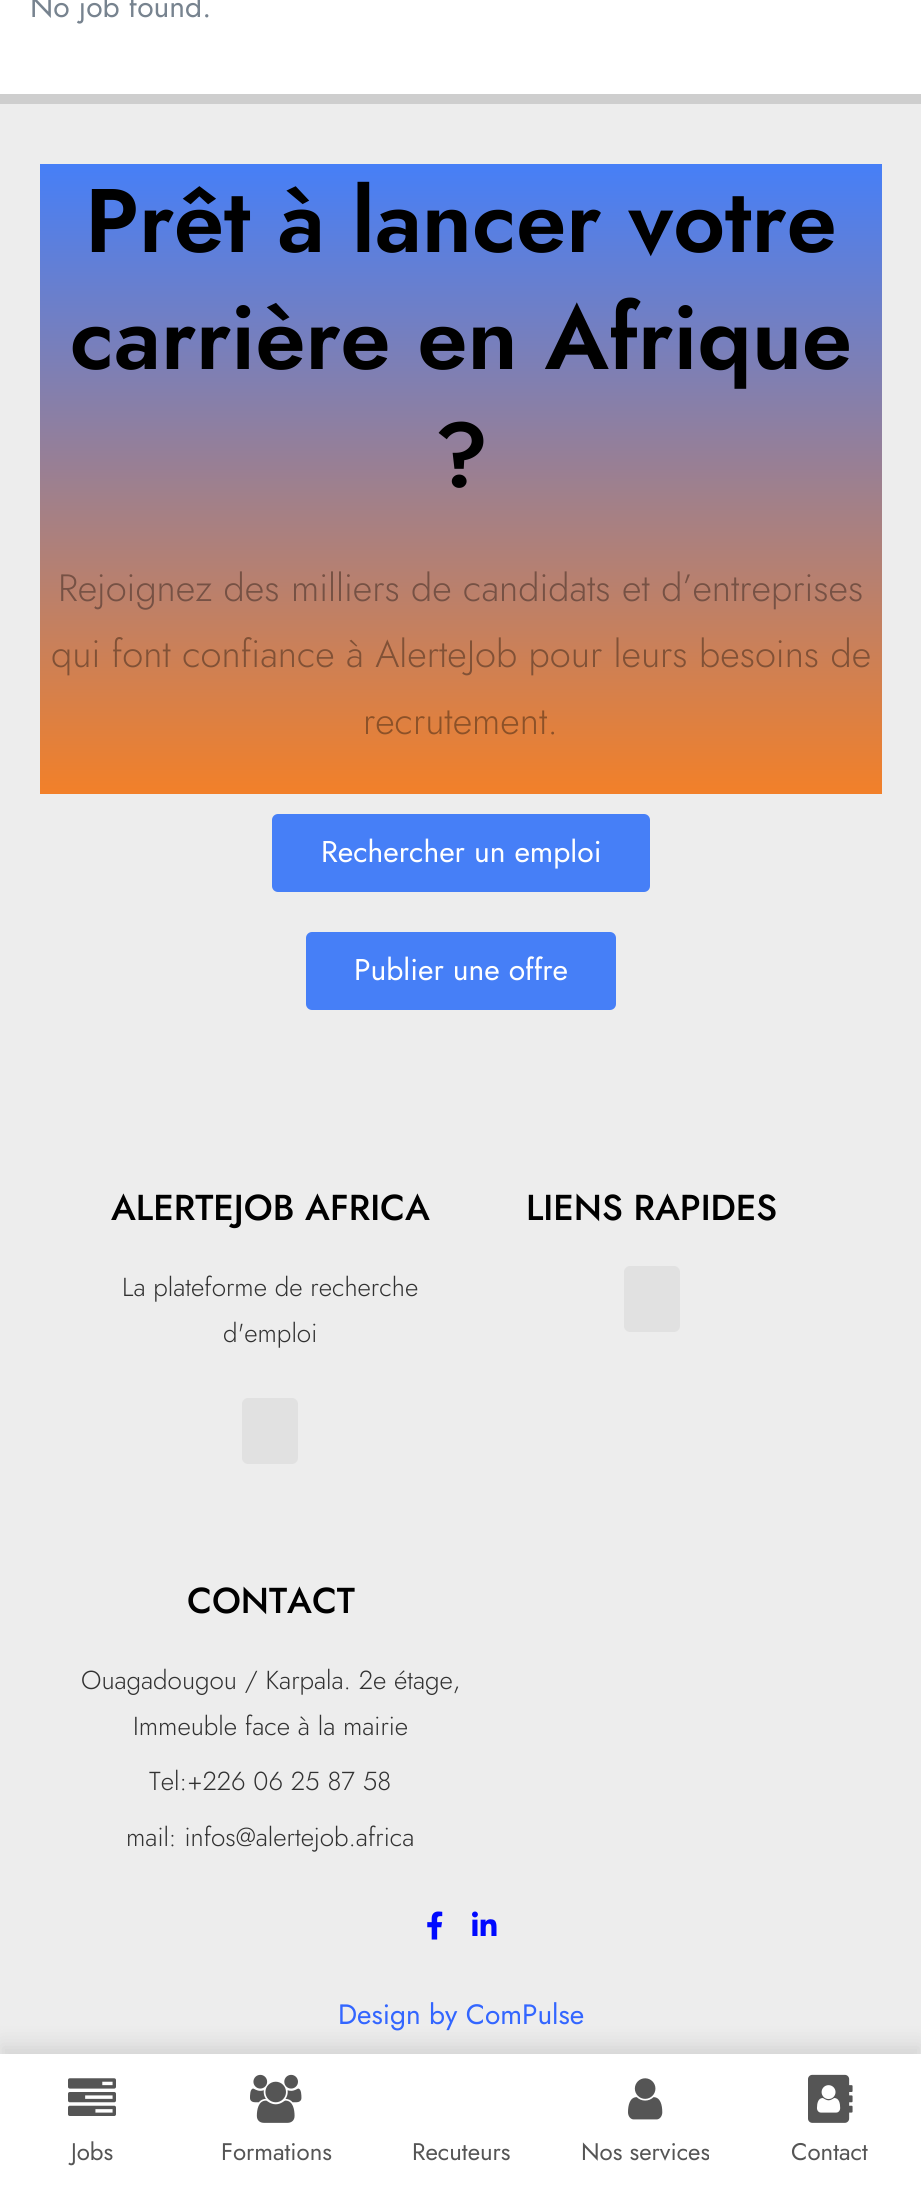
#include <cairo.h>
#include <math.h>
#include <stddef.h>

static cairo_t *c;
static void C(unsigned color){cairo_set_source_rgb(c, (color >> 16) / 255.0, (color >> 8 & 255) / 255.0, (color & 255) / 255.0);}
static void F(const char *family, double size, int italic, int bold){cairo_select_font_face(c, family, italic ? CAIRO_FONT_SLANT_ITALIC : CAIRO_FONT_SLANT_NORMAL,bold ? CAIRO_FONT_WEIGHT_BOLD : CAIRO_FONT_WEIGHT_NORMAL);cairo_set_font_size(c, size);}
static void T(double x, double y, const char *s){cairo_move_to(c, x, y);cairo_show_text(c, s);}
static void R(double x, double y, double w, double h){cairo_rectangle(c, x, y, w, h);cairo_fill(c);}
static void Q(double x, double y, double w, double h, double r){cairo_new_sub_path(c);cairo_arc(c, x + w - r, y + h - r, r, 0, M_PI / 2);cairo_arc(c, x + r, y + h - r, r, M_PI / 2, M_PI);cairo_arc(c, x + r, y + r, r, M_PI, 1.5 * M_PI);cairo_arc(c, x + w - r, y + r, r, 1.5 * M_PI, 2 * M_PI);cairo_close_path(c);}
static void S(double x, double y, double w, double h, double r, double blur, double alpha){cairo_push_group_with_content(c, CAIRO_CONTENT_ALPHA);cairo_set_operator(c, CAIRO_OPERATOR_SOURCE);for (int i = 15; i >= -15 && fmin(w, h) + blur * i / 3 > 0; i -= 2) {double e = blur * i / 6;cairo_set_source_rgba(c, 0, 0, 0, alpha * erfc((i - 1) / 8.5) / 2);Q(x - e, y - e, w + 2 * e, h + 2 * e, fmax(0, fmin(r + e + blur * .6, fmin(w, h) / 2 + e)));cairo_fill(c);}cairo_pattern_t *soft = cairo_pop_group(c);cairo_mask(c, soft);cairo_pattern_destroy(soft);}
static void I(const char *path, double x, double y, double w, double h){cairo_surface_t *image = cairo_image_surface_create_from_png(path);cairo_save(c);cairo_set_source_surface(c, image, x, y);cairo_rectangle(c, x, y, w, h);cairo_fill(c);cairo_restore(c);cairo_surface_destroy(image);}
int main(void) {
cairo_surface_t *surface = cairo_image_surface_create(CAIRO_FORMAT_RGB24, 921, 2193);
c = cairo_create(surface);
cairo_font_options_t *options = cairo_font_options_create();
cairo_font_options_set_hint_metrics(options, CAIRO_HINT_METRICS_OFF);
cairo_font_options_set_hint_style(options, CAIRO_HINT_STYLE_NONE);
cairo_set_font_options(c, options);
cairo_set_miter_limit(c, 4);
cairo_pattern_t *gradient;
C(0xffffff);
cairo_paint(c);
F("Jost",30,0,0);
C(0x77838f);
T(30,17,"No job found.");
C(0xededed);
R(0,104,921,1950);
C(0xcecece);
R(0,94,921,10);
gradient = cairo_pattern_create_linear(461,164,461,794);
cairo_pattern_add_color_stop_rgba(gradient,0,0.275,0.498,0.969,1);
cairo_pattern_add_color_stop_rgba(gradient,1,0.949,0.502,0.161,1);
cairo_set_source(c,gradient);
cairo_pattern_destroy(gradient);
R(40,164,842,630);
F("Jost SemiBold",90,0,0);
C(0x000000);
T(85,252,"Prêt à lancer votre");
T(70,369,"carrière en Afrique");
T(434,486,"?");
F("Jost Light",38,0,0);
C(0x765144);
T(58,601,"Rejoignez des milliers de candidats et d’entreprises");
C(0x815136);
T(51,667,"qui font confiance à AlerteJob pour leurs besoins de");
C(0x8c5128);
T(363,734,"recrutement.");
C(0x467ff7);
Q(272,814,378,78,6);
cairo_fill(c);
F("Jost",30,0,0);
C(0xffffff);
T(321,862,"Rechercher un emploi");
C(0x467ff7);
Q(306,932,310,78,6);
cairo_fill(c);
C(0xffffff);
T(354,980,"Publier une offre");
F("Jost Medium",36,0,0);
C(0x000000);
T(111,1220,"ALERTEJOB AFRICA");
F("Jost Light",26,0,0);
C(0x323232);
T(122,1296,"La plateforme de recherche");
T(223,1342,"d'emploi");
C(0xe1e1e1);
Q(242,1398,56,66,6);
cairo_fill(c);
F("Jost Medium",36,0,0);
C(0x000000);
T(526,1220,"LIENS RAPIDES");
C(0xe1e1e1);
Q(624,1266,56,66,6);
cairo_fill(c);
C(0x000000);
T(187,1613,"CONTACT");
F("Jost Light",26,0,0);
C(0x323232);
T(81,1689,"Ouagadougou / Karpala. 2e étage,");
T(133,1735,"Immeuble face à la mairie");
T(149,1790,"Tel:+226 06 25 87 58");
T(126,1846,"mail: infos@alertejob.africa");
I("1.png",427,1911,16,29);
I("2.png",472,1911,25,25);
F("Jost",28,0,0);
C(0x3366ff);
T(338,2024,"Design by ComPulse");
C(0x000000);
S(0,2044,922,140,0,10,.1);
C(0xffffff);
R(0,2054,921,139);
I("3.png",68,2078,48,38);
F("Jost",24,0,0);
C(0x555555);
T(71,2160,"Jobs");
I("4.png",250,2074,52,49);
T(221,2160,"Formations");
T(412,2160,"Recuteurs");
I("5.png",628,2078,35,42);
T(581,2160,"Nos services");
I("6.png",808,2074,45,49);
T(791,2160,"Contact");
cairo_surface_write_to_png(surface, "o.png");
cairo_font_options_destroy(options);
cairo_destroy(c);
cairo_surface_destroy(surface);
return 0;
}
